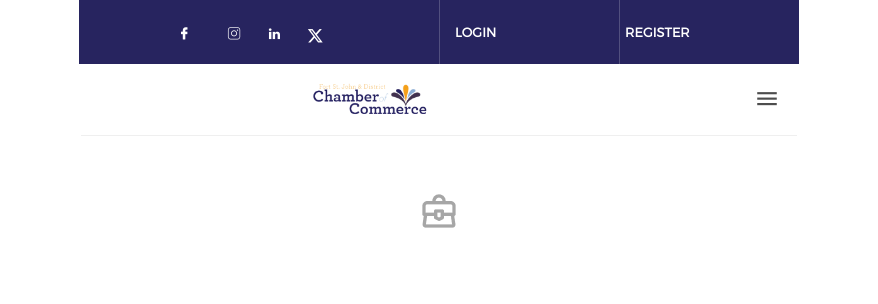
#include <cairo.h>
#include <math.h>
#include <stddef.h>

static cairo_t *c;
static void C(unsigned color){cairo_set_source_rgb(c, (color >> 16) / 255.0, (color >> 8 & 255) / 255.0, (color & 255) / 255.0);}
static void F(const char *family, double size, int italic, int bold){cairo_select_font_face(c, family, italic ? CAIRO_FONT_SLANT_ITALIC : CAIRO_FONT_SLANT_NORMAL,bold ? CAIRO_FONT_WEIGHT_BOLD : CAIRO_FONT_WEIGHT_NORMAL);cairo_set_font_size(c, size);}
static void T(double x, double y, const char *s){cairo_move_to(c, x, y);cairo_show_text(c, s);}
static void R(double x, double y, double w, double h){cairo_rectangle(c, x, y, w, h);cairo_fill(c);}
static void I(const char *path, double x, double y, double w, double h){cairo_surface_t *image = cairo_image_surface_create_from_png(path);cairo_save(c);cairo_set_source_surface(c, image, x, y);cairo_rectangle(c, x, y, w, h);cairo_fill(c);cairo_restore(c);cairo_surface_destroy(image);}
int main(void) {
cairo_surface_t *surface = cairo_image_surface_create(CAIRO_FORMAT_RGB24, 878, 304);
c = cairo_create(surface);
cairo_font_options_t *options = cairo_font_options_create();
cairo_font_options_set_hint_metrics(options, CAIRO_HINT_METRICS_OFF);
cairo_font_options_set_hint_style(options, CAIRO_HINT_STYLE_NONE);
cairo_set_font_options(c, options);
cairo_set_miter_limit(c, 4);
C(0xffffff);
cairo_paint(c);
C(0xefefef);
R(81,135,716,1);
C(0x27245f);
R(79,0,720,64);
F("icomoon",22,0,0);
C(0xffffff);
T(181,43,"3");
I("1.png",227,27,14,13);
I("2.png",268,28,12,12);
I("3.png",308,29,15,14);
C(0x52507f);
R(439,0,1,64);
F("Montserrat",13,0,1);
C(0xffffff);
T(455,37,"LOGIN");
C(0x52507f);
R(619,0,1,64);
C(0xffffff);
T(625,37,"REGISTER");
I("4.png",313,83,114,32);
I("5.png",757,92,20,14);
I("6.png",422,194,34,34);
cairo_surface_write_to_png(surface, "o.png");
cairo_font_options_destroy(options);
cairo_destroy(c);
cairo_surface_destroy(surface);
return 0;
}
